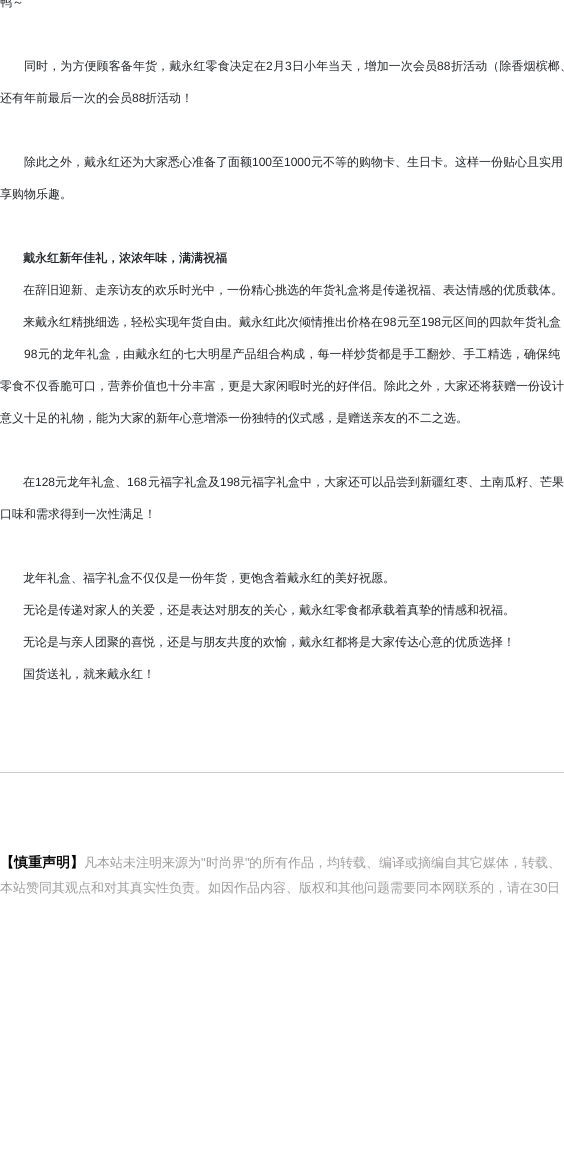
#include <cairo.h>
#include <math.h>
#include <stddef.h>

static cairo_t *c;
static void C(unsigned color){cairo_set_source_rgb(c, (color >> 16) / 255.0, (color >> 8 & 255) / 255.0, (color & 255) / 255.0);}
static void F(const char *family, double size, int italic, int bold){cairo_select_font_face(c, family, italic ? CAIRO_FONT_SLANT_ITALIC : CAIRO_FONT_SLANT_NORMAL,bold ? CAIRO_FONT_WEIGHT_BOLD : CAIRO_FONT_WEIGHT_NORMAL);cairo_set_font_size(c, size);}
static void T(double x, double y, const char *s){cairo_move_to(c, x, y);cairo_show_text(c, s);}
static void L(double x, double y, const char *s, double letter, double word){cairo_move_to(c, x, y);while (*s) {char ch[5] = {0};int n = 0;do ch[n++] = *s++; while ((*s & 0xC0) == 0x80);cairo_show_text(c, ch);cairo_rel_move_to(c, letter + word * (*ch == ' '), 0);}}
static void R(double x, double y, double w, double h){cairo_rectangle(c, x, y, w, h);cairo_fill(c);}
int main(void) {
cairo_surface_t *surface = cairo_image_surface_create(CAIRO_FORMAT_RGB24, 564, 1159);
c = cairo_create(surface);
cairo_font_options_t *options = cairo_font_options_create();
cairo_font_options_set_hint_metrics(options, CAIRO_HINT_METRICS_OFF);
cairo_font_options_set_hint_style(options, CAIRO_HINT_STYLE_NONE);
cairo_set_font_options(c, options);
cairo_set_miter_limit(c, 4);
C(0xffffff);
cairo_paint(c);
F("WenQuanYi Zen Hei Medium",12,0,0);
C(0x212529);
T(0,6,"鸭～");
L(24,70,"同时，为方便顾客备年货，戴永红零食决定在",.1,0);
F("Liberation Sans",12,0,0);
L(266,70,"2",.1,0);
F("WenQuanYi Zen Hei Medium",12,0,0);
L(273,70,"月",.1,0);
F("Liberation Sans",12,0,0);
L(285,70,"3",.1,0);
F("WenQuanYi Zen Hei Medium",12,0,0);
L(292,70,"日小年当天，增加一次会员",.1,0);
F("Liberation Sans",12,0,0);
L(437,70,"88",.1,0);
F("WenQuanYi Zen Hei Medium",12,0,0);
L(451,70,"折活动（除香烟槟榔、",.1,0);
T(0,102,"还有年前最后一次的会员");
F("Liberation Sans",12,0,0);
T(132,102,"88");
F("WenQuanYi Zen Hei Medium",12,0,0);
T(145,102,"折活动！");
T(24,166,"除此之外，戴永红还为大家悉心准备了面额");
F("Liberation Sans",12,0,0);
T(252,166,"100");
F("WenQuanYi Zen Hei Medium",12,0,0);
T(272,166,"至");
F("Liberation Sans",12,0,0);
T(284,166,"1000");
F("WenQuanYi Zen Hei Medium",12,0,0);
T(311,166,"元不等的购物卡、生日卡。这样一份贴心且实用");
T(0,198,"享购物乐趣。");
F("WenQuanYi Zen Hei",12,0,1);
T(23,262,"戴永红新年佳礼，浓浓年味，满满祝福");
F("WenQuanYi Zen Hei Medium",12,0,0);
T(23,294,"在辞旧迎新、走亲访友的欢乐时光中，一份精心挑选的年货礼盒将是传递祝福、表达情感的优质载体。");
T(23,326,"来戴永红精挑细选，轻松实现年货自由。戴永红此次倾情推出价格在");
F("Liberation Sans",12,0,0);
T(383,326,"98");
F("WenQuanYi Zen Hei Medium",12,0,0);
T(397,326,"元至");
F("Liberation Sans",12,0,0);
T(421,326,"198");
F("WenQuanYi Zen Hei Medium",12,0,0);
T(441,326,"元区间的四款年货礼盒");
F("Liberation Sans",12,0,0);
L(24,358,"98",.15,0);
F("WenQuanYi Zen Hei Medium",12,0,0);
L(38,358,"元的龙年礼盒，由戴永红的七大明星产品组合构成，每一样炒货都是手工翻炒、手工精选，确保纯",.15,0);
T(0,390,"零食不仅香脆可口，营养价值也十分丰富，更是大家闲暇时光的好伴侣。除此之外，大家还将获赠一份设计");
T(0,422,"意义十足的礼物，能为大家的新年心意增添一份独特的仪式感，是赠送亲友的不二之选。");
T(23,486,"在");
F("Liberation Sans",12,0,0);
T(35,486,"128");
F("WenQuanYi Zen Hei Medium",12,0,0);
T(55,486,"元龙年礼盒、");
F("Liberation Sans",12,0,0);
T(127,486,"168");
F("WenQuanYi Zen Hei Medium",12,0,0);
T(148,486,"元福字礼盒及");
F("Liberation Sans",12,0,0);
T(220,486,"198");
F("WenQuanYi Zen Hei Medium",12,0,0);
T(240,486,"元福字礼盒中，大家还可以品尝到新疆红枣、土南瓜籽、芒果");
T(0,518,"口味和需求得到一次性满足！");
T(23,582,"龙年礼盒、福字礼盒不仅仅是一份年货，更饱含着戴永红的美好祝愿。");
T(23,614,"无论是传递对家人的关爱，还是表达对朋友的关心，戴永红零食都承载着真挚的情感和祝福。");
T(23,646,"无论是与亲人团聚的喜悦，还是与朋友共度的欢愉，戴永红都将是大家传达心意的优质选择！");
T(23,678,"国货送礼，就来戴永红！");
C(0xcccccc);
R(0,772,564,1);
F("WenQuanYi Zen Hei",14,0,1);
C(0x000000);
T(0,867,"【慎重声明】");
F("WenQuanYi Zen Hei Medium",13,0,0);
C(0x9e9b9b);
T(84,867,"凡本站未注明来源为");
F("Liberation Sans",13,0,0);
T(201,867,"\"");
F("WenQuanYi Zen Hei Medium",13,0,0);
T(206,867,"时尚界");
F("Liberation Sans",13,0,0);
T(245,867,"\"");
F("WenQuanYi Zen Hei Medium",13,0,0);
T(249,867,"的所有作品，均转载、编译或摘编自其它媒体，转载、");
T(0,892,"本站赞同其观点和对其真实性负责。如因作品内容、版权和其他问题需要同本网联系的，请在");
F("Liberation Sans",13,0,0);
T(533,892,"30");
F("WenQuanYi Zen Hei Medium",13,0,0);
T(547,892,"日");
cairo_surface_write_to_png(surface, "o.png");
cairo_font_options_destroy(options);
cairo_destroy(c);
cairo_surface_destroy(surface);
return 0;
}
